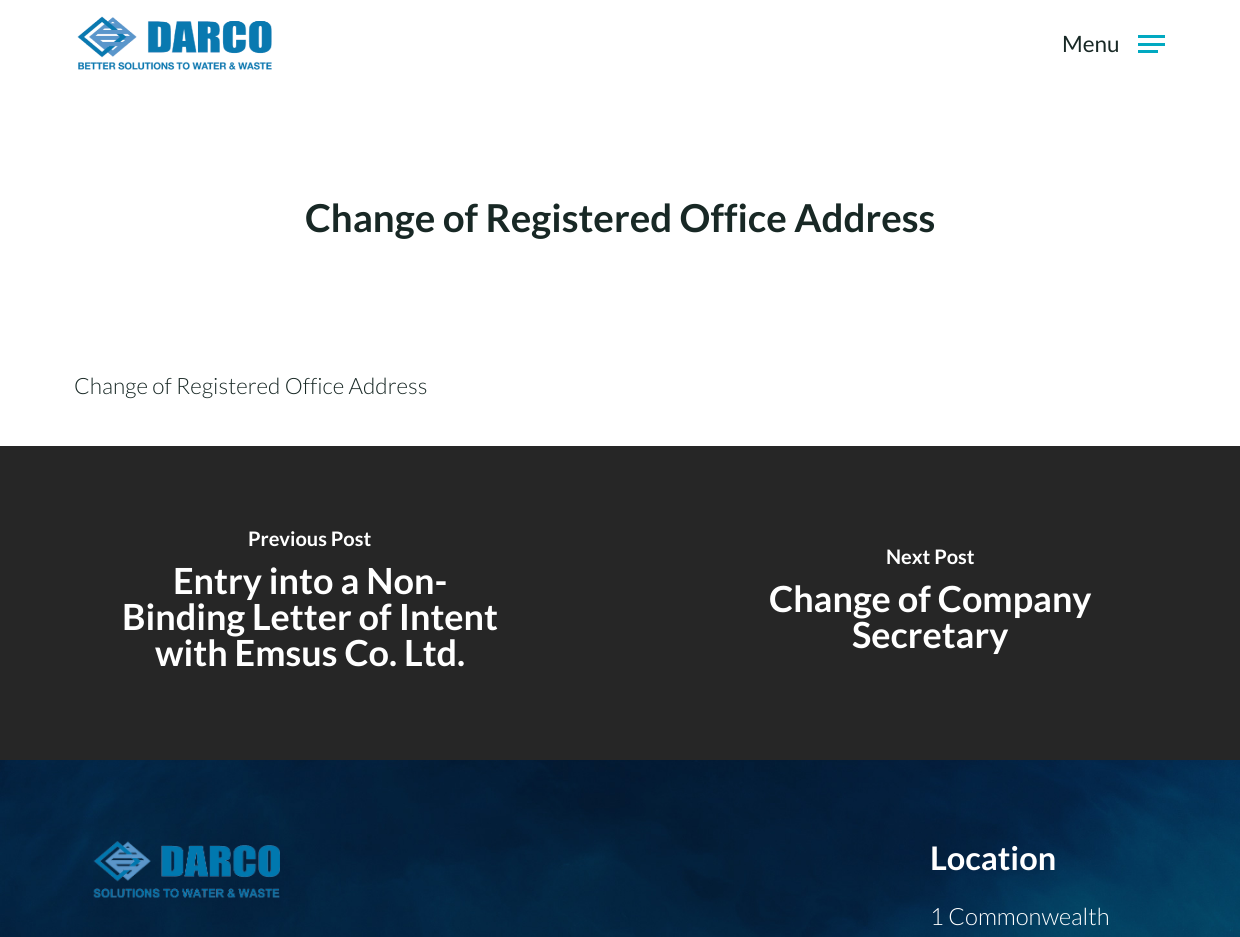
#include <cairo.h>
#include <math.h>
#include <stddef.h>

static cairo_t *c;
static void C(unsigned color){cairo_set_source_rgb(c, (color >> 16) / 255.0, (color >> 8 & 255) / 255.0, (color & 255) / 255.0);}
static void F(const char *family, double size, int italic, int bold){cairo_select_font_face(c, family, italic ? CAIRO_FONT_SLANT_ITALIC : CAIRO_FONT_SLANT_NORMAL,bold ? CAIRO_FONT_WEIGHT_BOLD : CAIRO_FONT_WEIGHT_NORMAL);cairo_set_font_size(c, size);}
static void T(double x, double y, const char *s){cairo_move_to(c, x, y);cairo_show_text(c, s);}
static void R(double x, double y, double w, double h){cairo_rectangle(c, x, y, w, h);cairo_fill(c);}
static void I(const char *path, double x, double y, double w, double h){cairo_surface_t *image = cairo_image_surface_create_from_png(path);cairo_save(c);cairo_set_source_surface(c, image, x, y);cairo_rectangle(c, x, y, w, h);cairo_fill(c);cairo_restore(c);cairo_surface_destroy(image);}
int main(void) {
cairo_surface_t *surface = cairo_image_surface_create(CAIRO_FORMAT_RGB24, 1240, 937);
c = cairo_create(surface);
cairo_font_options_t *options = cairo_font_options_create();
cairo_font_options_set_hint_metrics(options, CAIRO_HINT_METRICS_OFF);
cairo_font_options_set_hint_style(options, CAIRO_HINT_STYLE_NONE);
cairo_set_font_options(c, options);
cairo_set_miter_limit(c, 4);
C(0xffffff);
cairo_paint(c);
I("1.png",77,16,195,54);
F("Lato",22.5,0,0);
C(0x182825);
T(1062,52,"Menu");
C(0x01a9c1);
R(1138,35,27,3);
R(1138,50,20,3);
R(1138,43,27,3);
F("Lato",38.5,0,1);
C(0x182825);
T(305,232,"Change of Registered Office Address");
F("Lato Light",22.5,0,0);
T(74,394,"Change of Registered Office Address");
C(0x262626);
R(0,446,1240,314);
F("Lato",20,0,1);
C(0xffffff);
T(248,546,"Previous Post");
F("Lato",36,0,1);
T(173,594,"Entry into a Non-");
T(122,630,"Binding Letter of Intent");
T(155,666,"with Emsus Co. Ltd.");
F("Lato",20,0,1);
T(886,564,"Next Post");
F("Lato",36,0,1);
T(769,612,"Change of Company");
T(852,648,"Secretary");
I("2.png",0,760,1240,177);
I("3.png",93,841,187,57);
F("Lato",32.5,0,1);
T(930,870,"Location");
F("Lato Light",23.75,0,0);
T(930,925,"1 Commonwealth");
cairo_surface_write_to_png(surface, "o.png");
cairo_font_options_destroy(options);
cairo_destroy(c);
cairo_surface_destroy(surface);
return 0;
}
